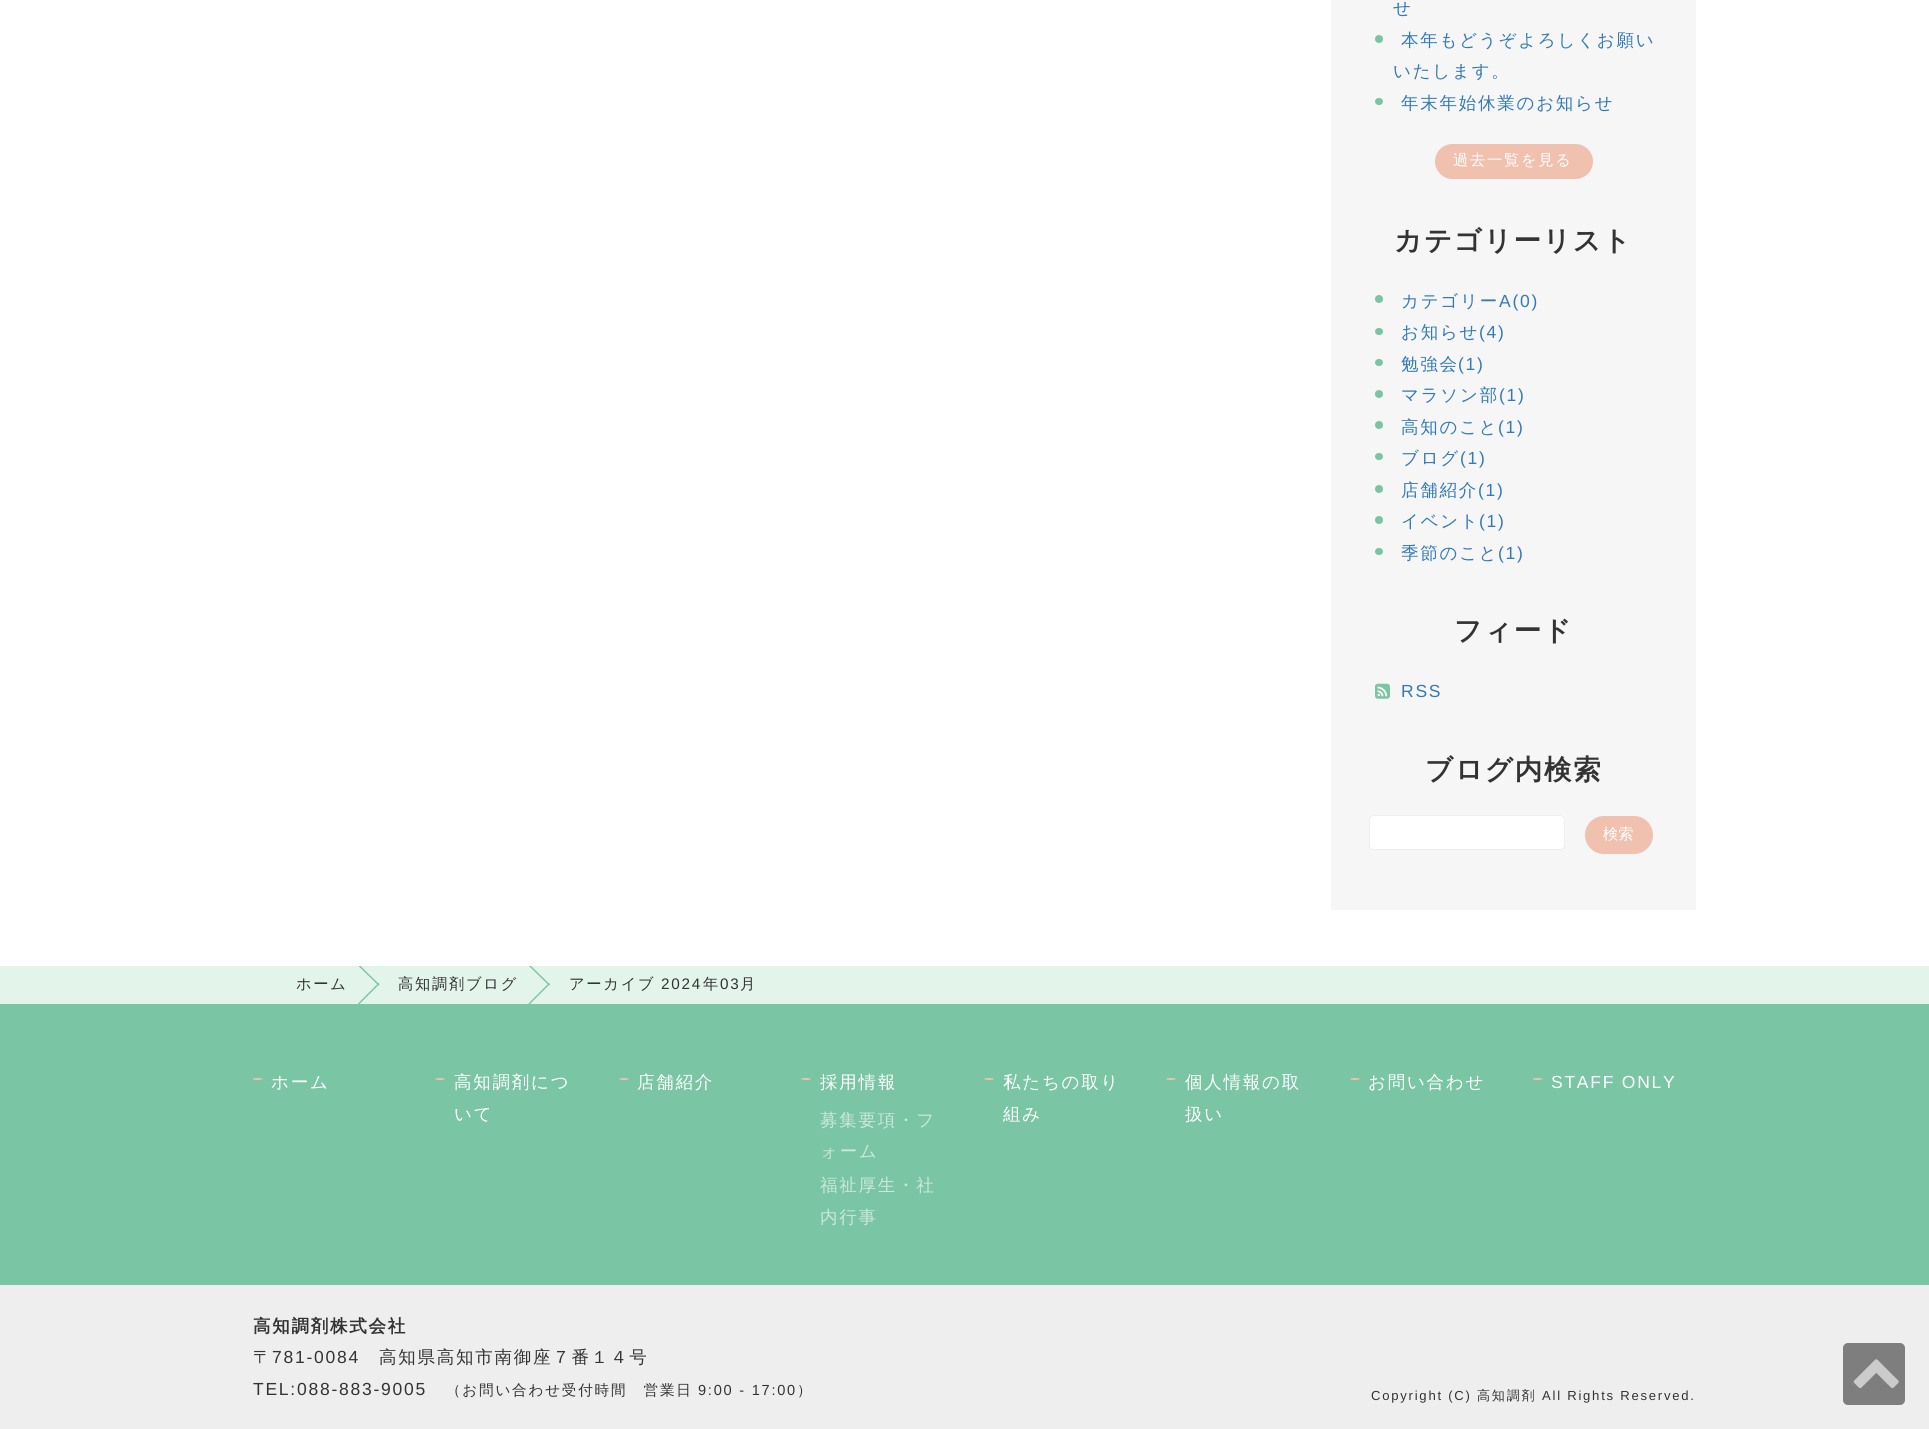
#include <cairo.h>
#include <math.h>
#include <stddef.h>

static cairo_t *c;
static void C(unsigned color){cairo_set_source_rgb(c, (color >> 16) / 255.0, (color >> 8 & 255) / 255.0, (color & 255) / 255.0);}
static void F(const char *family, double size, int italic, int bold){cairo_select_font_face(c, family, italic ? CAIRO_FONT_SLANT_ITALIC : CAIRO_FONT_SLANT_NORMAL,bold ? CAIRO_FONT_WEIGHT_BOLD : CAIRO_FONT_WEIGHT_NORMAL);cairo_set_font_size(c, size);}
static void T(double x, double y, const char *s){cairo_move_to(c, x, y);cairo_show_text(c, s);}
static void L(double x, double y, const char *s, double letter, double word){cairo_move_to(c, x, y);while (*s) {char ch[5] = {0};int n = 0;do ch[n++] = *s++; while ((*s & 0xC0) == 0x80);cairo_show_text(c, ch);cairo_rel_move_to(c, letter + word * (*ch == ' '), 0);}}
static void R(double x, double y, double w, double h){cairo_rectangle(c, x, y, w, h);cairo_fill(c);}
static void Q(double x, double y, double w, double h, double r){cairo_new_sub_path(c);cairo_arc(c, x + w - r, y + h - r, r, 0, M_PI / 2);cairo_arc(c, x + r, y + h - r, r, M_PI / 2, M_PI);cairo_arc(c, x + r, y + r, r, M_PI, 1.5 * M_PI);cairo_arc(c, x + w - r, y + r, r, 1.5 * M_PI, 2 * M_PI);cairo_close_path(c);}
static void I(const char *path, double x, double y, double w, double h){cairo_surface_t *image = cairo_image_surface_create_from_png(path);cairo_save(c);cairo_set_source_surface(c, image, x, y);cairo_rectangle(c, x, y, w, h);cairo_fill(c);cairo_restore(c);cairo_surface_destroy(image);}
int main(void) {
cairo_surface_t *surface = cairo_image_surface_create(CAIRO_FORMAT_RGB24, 1929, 1429);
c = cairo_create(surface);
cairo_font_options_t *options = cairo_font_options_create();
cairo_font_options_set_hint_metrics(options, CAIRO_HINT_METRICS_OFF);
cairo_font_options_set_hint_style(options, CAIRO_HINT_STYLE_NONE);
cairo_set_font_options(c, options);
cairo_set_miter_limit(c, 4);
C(0xeeeeee);
cairo_paint(c);
C(0xffffff);
R(0,0,1929,966);
C(0xf6f6f6);
R(1331,0,365,910);
F("WenQuanYi Zen Hei Medium",17.5,0,0);
C(0x337ab7);
L(1393,14,"せ",1.75,0);
C(0x7ac5a4);
cairo_new_path(c);
cairo_arc(c,1379,39,4,0,2 * M_PI);
cairo_fill(c);
C(0x337ab7);
L(1401,46,"本年もどうぞよろしくお願い",1.75,0);
L(1393,77,"いたします。",1.75,0);
C(0x7ac5a4);
Q(1375,98,8,7,3.5);
cairo_fill(c);
C(0x337ab7);
L(1401,109,"年末年始休業のお知らせ",1.75,0);
C(0xefc1ae);
Q(1435,144,158,35,17.5);
cairo_fill(c);
F("WenQuanYi Zen Hei Medium",15.25,0,0);
C(0xffffff);
L(1453,165,"過去一覧を見る",1.75,0);
F("WenQuanYi Zen Hei",27.5,0,1);
C(0x333333);
L(1394,250,"カテゴリーリスト",1.75,0);
C(0x7ac5a4);
cairo_new_path(c);
cairo_arc(c,1379,299,4,0,2 * M_PI);
cairo_fill(c);
F("WenQuanYi Zen Hei Medium",17.5,0,0);
C(0x337ab7);
L(1401,307,"カテゴリー",1.75,0);
F("Liberation Sans",17.5,0,0);
L(1499,307,"A(0)",1.75,0);
C(0x7ac5a4);
Q(1375,328,8,7,3.5);
cairo_fill(c);
F("WenQuanYi Zen Hei Medium",17.5,0,0);
C(0x337ab7);
L(1401,338,"お知らせ",1.75,0);
F("Liberation Sans",17.5,0,0);
L(1479,338,"(4)",1.75,0);
C(0x7ac5a4);
Q(1375,359,8,7,3.5);
cairo_fill(c);
F("WenQuanYi Zen Hei Medium",17.5,0,0);
C(0x337ab7);
L(1401,370,"勉強会",1.75,0);
F("Liberation Sans",17.5,0,0);
L(1458,370,"(1)",1.75,0);
C(0x7ac5a4);
cairo_new_path(c);
cairo_arc(c,1379,394,4,0,2 * M_PI);
cairo_fill(c);
F("WenQuanYi Zen Hei Medium",17.5,0,0);
C(0x337ab7);
L(1401,401,"マラソン部",1.75,0);
F("Liberation Sans",17.5,0,0);
L(1499,401,"(1)",1.75,0);
C(0x7ac5a4);
cairo_new_path(c);
cairo_arc(c,1379,425,4,0,2 * M_PI);
cairo_fill(c);
F("WenQuanYi Zen Hei Medium",17.5,0,0);
C(0x337ab7);
L(1401,433,"高知のこと",1.75,0);
F("Liberation Sans",17.5,0,0);
L(1498,433,"(1)",1.75,0);
C(0x7ac5a4);
Q(1375,453,8,7,3.5);
cairo_fill(c);
F("WenQuanYi Zen Hei Medium",17.5,0,0);
C(0x337ab7);
L(1401,464,"ブログ",1.75,0);
F("Liberation Sans",17.5,0,0);
L(1460,464,"(1)",1.75,0);
C(0x7ac5a4);
cairo_new_path(c);
cairo_arc(c,1379,489,4,0,2 * M_PI);
cairo_fill(c);
F("WenQuanYi Zen Hei Medium",17.5,0,0);
C(0x337ab7);
L(1401,496,"店舗紹介",1.75,0);
F("Liberation Sans",17.5,0,0);
L(1478,496,"(1)",1.75,0);
C(0x7ac5a4);
cairo_new_path(c);
cairo_arc(c,1379,520,4,0,2 * M_PI);
cairo_fill(c);
F("WenQuanYi Zen Hei Medium",17.5,0,0);
C(0x337ab7);
L(1401,527,"イベント",1.75,0);
F("Liberation Sans",17.5,0,0);
L(1479,527,"(1)",1.75,0);
C(0x7ac5a4);
Q(1375,548,8,7,3.5);
cairo_fill(c);
F("WenQuanYi Zen Hei Medium",17.5,0,0);
C(0x337ab7);
L(1401,559,"季節のこと",1.75,0);
F("Liberation Sans",17.5,0,0);
L(1498,559,"(1)",1.75,0);
F("WenQuanYi Zen Hei",27.5,0,1);
C(0x333333);
L(1454,640,"フィード",1.75,0);
I("1.png",1375,683,15,16);
F("Liberation Sans",17.5,0,0);
C(0x337ab7);
L(1401,697,"RSS",1.75,0);
F("WenQuanYi Zen Hei",27.5,0,1);
C(0x333333);
L(1425,779,"ブログ内検索",1.75,0);
C(0xffffff);
Q(1369.5,815.5,195,34,4.5);
cairo_fill_preserve(c);
C(0xeeeeee);
cairo_set_line_width(c,1);
cairo_stroke(c);
C(0xefc1ae);
Q(1585,816,68,38,19);
cairo_fill(c);
F("WenQuanYi Zen Hei Medium",15.25,0,0);
C(0xffffff);
T(1603,839,"検索");
C(0xe3f4ea);
R(0,966,1929,38);
C(0x333333);
L(296,989,"ホーム",1.75,0);
C(0x7ac5a4);
cairo_new_path(c);
cairo_move_to(c,360.5,966);
cairo_line_to(c,379.5,984.5);
cairo_line_to(c,378.5,985.5);
cairo_line_to(c,358.5,966);
cairo_close_path(c);
cairo_fill(c);
C(0x333333);
L(398,989,"高知調剤ブログ",1.75,0);
C(0x7ac5a4);
cairo_new_path(c);
cairo_move_to(c,358,1003.5);
cairo_line_to(c,378.5,983);
cairo_line_to(c,379.5,984);
cairo_line_to(c,359,1004.5);
cairo_close_path(c);
cairo_fill(c);
cairo_new_path(c);
cairo_move_to(c,531,966);
cairo_line_to(c,550,984.5);
cairo_line_to(c,549,985.5);
cairo_line_to(c,529,966);
cairo_close_path(c);
cairo_fill(c);
C(0x333333);
L(569,989,"アーカイブ",1.75,0);
F("Liberation Sans",15.25,0,0);
L(661,989,"2024",1.75,0);
F("WenQuanYi Zen Hei Medium",15.25,0,0);
L(703,989,"年",1.75,0);
F("Liberation Sans",15.25,0,0);
L(720,989,"03",1.75,0);
F("WenQuanYi Zen Hei Medium",15.25,0,0);
L(740,989,"月",1.75,0);
C(0x7ac5a4);
cairo_new_path(c);
cairo_move_to(c,528.5,1003.5);
cairo_line_to(c,549,983);
cairo_line_to(c,550,984);
cairo_line_to(c,529.5,1004.5);
cairo_close_path(c);
cairo_fill(c);
R(0,1004,1929,281);
C(0xefc1ae);
cairo_new_path(c);
cairo_move_to(c,257.5,1078);
cairo_curve_to(c,260.5,1078,262.5,1078.5,262.5,1079);
cairo_curve_to(c,262.5,1079.5,260.5,1080,257.5,1080);
cairo_curve_to(c,254.5,1080,252.5,1079.5,252.5,1079);
cairo_curve_to(c,252.5,1078.5,254.5,1078,257.5,1078);
cairo_close_path(c);
cairo_fill(c);
F("WenQuanYi Zen Hei Medium",17.5,0,0);
C(0xffffff);
L(271,1088,"ホーム",1.75,0);
C(0xefc1ae);
cairo_new_path(c);
cairo_move_to(c,440,1078);
cairo_curve_to(c,443,1078,445,1078.5,445,1079);
cairo_curve_to(c,445,1079.5,443,1080,440,1080);
cairo_curve_to(c,437,1080,435,1079.5,435,1079);
cairo_curve_to(c,435,1078.5,437,1078,440,1078);
cairo_close_path(c);
cairo_fill(c);
C(0xffffff);
L(454,1088,"高知調剤につ",1.75,0);
L(454,1120,"いて",1.75,0);
C(0xefc1ae);
cairo_new_path(c);
cairo_move_to(c,624,1078);
cairo_curve_to(c,627,1078,629,1078.5,629,1079);
cairo_curve_to(c,629,1079.5,627,1080,624,1080);
cairo_curve_to(c,621,1080,619,1079.5,619,1079);
cairo_curve_to(c,619,1078.5,621,1078,624,1078);
cairo_close_path(c);
cairo_fill(c);
C(0xffffff);
L(637,1088,"店舗紹介",1.75,0);
C(0xefc1ae);
cairo_new_path(c);
cairo_move_to(c,806,1078);
cairo_curve_to(c,809,1078,811,1078.5,811,1079);
cairo_curve_to(c,811,1079.5,809,1080,806,1080);
cairo_curve_to(c,803,1080,801,1079.5,801,1079);
cairo_curve_to(c,801,1078.5,803,1078,806,1078);
cairo_close_path(c);
cairo_fill(c);
C(0xffffff);
L(820,1088,"採用情報",1.75,0);
C(0xcae8db);
L(820,1126,"募集要項・フ",1.75,0);
L(820,1157,"ォーム",1.75,0);
L(820,1191,"福祉厚生・社",1.75,0);
L(820,1223,"内行事",1.75,0);
C(0xefc1ae);
cairo_new_path(c);
cairo_move_to(c,989,1078);
cairo_curve_to(c,992,1078,994,1078.5,994,1079);
cairo_curve_to(c,994,1079.5,992,1080,989,1080);
cairo_curve_to(c,986,1080,984,1079.5,984,1079);
cairo_curve_to(c,984,1078.5,986,1078,989,1078);
cairo_close_path(c);
cairo_fill(c);
C(0xffffff);
L(1003,1088,"私たちの取り",1.75,0);
L(1003,1120,"組み",1.75,0);
C(0xefc1ae);
cairo_new_path(c);
cairo_move_to(c,1171,1078);
cairo_curve_to(c,1174,1078,1176,1078.5,1176,1079);
cairo_curve_to(c,1176,1079.5,1174,1080,1171,1080);
cairo_curve_to(c,1168,1080,1166,1079.5,1166,1079);
cairo_curve_to(c,1166,1078.5,1168,1078,1171,1078);
cairo_close_path(c);
cairo_fill(c);
C(0xffffff);
L(1185,1088,"個人情報の取",1.75,0);
L(1185,1120,"扱い",1.75,0);
C(0xefc1ae);
cairo_new_path(c);
cairo_move_to(c,1355,1078);
cairo_curve_to(c,1358,1078,1360,1078.5,1360,1079);
cairo_curve_to(c,1360,1079.5,1358,1080,1355,1080);
cairo_curve_to(c,1352,1080,1350,1079.5,1350,1079);
cairo_curve_to(c,1350,1078.5,1352,1078,1355,1078);
cairo_close_path(c);
cairo_fill(c);
C(0xffffff);
L(1368,1088,"お問い合わせ",1.75,0);
C(0xefc1ae);
cairo_new_path(c);
cairo_move_to(c,1537.5,1078);
cairo_curve_to(c,1540.5,1078,1542.5,1078.5,1542.5,1079);
cairo_curve_to(c,1542.5,1079.5,1540.5,1080,1537.5,1080);
cairo_curve_to(c,1534.5,1080,1532.5,1079.5,1532.5,1079);
cairo_curve_to(c,1532.5,1078.5,1534.5,1078,1537.5,1078);
cairo_close_path(c);
cairo_fill(c);
F("Liberation Sans",17.5,0,0);
C(0xffffff);
L(1551,1088,"STAFF ONLY",1.75,0);
F("WenQuanYi Zen Hei",17.5,0,1);
C(0x333333);
L(253,1332,"高知調剤株式会社",1.75,0);
F("WenQuanYi Zen Hei Medium",17.5,0,0);
L(253,1363,"〒",1.75,0);
F("Liberation Sans",17.5,0,0);
L(272,1363,"781-0084",1.75,0);
F("WenQuanYi Zen Hei Medium",17.5,0,0);
L(379,1363,"高知県高知市南御座７番１４号",1.75,0);
F("Liberation Sans",17.5,0,0);
L(253,1395,"TEL:088-883-9005",1.75,0);
F("WenQuanYi Zen Hei Medium",14.6,0,0);
L(446,1395,"（お問い合わせ受付時間　営業日",1.75,0);
F("Liberation Sans",14.6,0,0);
L(698,1395,"9:00 - 17:00",1.75,0);
F("WenQuanYi Zen Hei Medium",14.6,0,0);
L(797,1395,"）",1.75,0);
F("Liberation Sans",13.1,0,0);
L(1371,1400,"Copyright (C)",1.75,0);
F("WenQuanYi Zen Hei Medium",13.1,0,0);
L(1477,1400,"高知調剤",1.75,0);
F("Liberation Sans",13.1,0,0);
L(1542,1400,"All Rights Reserved.",1.75,0);
C(0x7e7e7e);
Q(1843,1343,62,62,5);
cairo_fill(c);
I("2.png",1853,1359,46,30);
cairo_surface_write_to_png(surface, "o.png");
cairo_font_options_destroy(options);
cairo_destroy(c);
cairo_surface_destroy(surface);
return 0;
}
